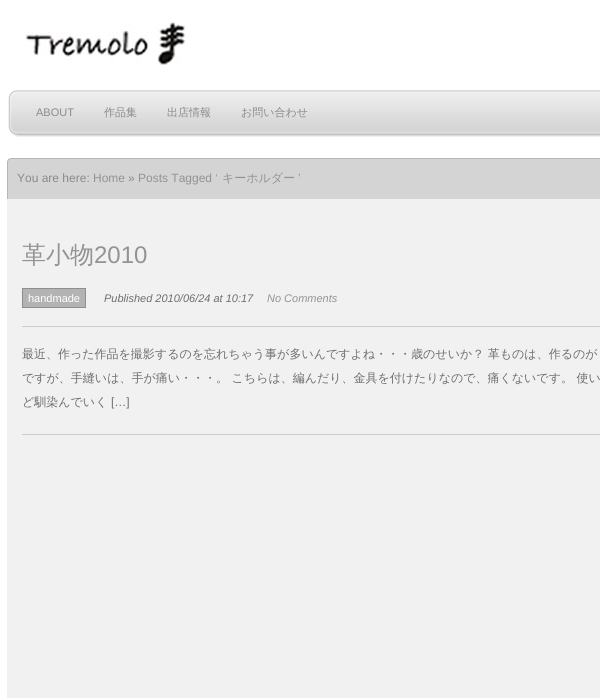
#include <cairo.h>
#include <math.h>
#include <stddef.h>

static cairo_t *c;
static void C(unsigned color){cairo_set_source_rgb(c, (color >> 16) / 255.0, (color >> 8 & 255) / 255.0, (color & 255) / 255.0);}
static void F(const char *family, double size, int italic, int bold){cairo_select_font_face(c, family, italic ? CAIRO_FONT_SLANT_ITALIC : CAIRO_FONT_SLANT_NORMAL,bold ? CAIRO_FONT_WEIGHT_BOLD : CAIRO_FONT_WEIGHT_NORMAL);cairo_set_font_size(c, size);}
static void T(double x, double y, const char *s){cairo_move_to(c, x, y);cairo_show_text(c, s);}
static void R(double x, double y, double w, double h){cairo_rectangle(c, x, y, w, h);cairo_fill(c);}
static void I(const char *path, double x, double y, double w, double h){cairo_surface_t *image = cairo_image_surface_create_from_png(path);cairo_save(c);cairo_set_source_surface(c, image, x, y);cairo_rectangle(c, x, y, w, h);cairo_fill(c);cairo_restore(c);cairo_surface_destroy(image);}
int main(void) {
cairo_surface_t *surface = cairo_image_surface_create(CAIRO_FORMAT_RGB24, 600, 698);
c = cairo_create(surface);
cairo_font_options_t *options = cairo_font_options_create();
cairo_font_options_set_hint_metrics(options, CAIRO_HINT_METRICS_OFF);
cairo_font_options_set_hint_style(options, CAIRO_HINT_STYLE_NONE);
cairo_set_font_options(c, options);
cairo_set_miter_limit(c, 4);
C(0xffffff);
cairo_paint(c);
I("1.png",25,21,161,44);
I("2.png",8,90,592,47);
F("Liberation Sans",11,0,0);
C(0x8a8a8a);
T(36,116,"ABOUT");
F("WenQuanYi Zen Hei Medium",11,0,0);
T(104,116,"作品集");
T(167,116,"出店情報");
T(241,116,"お問い合わせ");
I("3.png",7,158,593,41);
F("Liberation Sans",12,0,0);
T(17,182,"You are here:");
C(0x939393);
T(93,182,"Home");
T(138,182,"Posts Tagged ‘");
F("WenQuanYi Zen Hei Medium",12,0,0);
T(222,182,"キーホルダー");
F("Liberation Sans",12,0,0);
T(298,182,"’");
C(0x8a8a8a);
T(128,182,"»");
C(0xf1f1f1);
R(7,199,593,499);
C(0xcccccc);
R(22,434,578,1);
F("WenQuanYi Zen Hei Medium",24,0,0);
C(0x939393);
T(22,263,"革小物");
F("Liberation Sans",24,0,0);
T(94,263,"2010");
C(0xcccccc);
R(22,326,578,1);
C(0xb3b3b3);
cairo_rectangle(c,22.5,288.5,63,19);
cairo_fill_preserve(c);
C(0x8e8e8e);
cairo_set_line_width(c,1);
cairo_stroke(c);
F("Liberation Sans",11,0,0);
C(0xffffff);
T(28,302,"handmade");
F("Liberation Sans",11,1,0);
C(0x6e6e6e);
T(104,302,"Published 2010/06/24 at 10:17");
C(0x939393);
T(267,302,"No Comments");
F("WenQuanYi Zen Hei Medium",12,0,0);
C(0x6e6e6e);
T(22,358,"最近、作った作品を撮影するのを忘れちゃう事が多いんですよね・・・歳のせいか？ 革ものは、作るのが");
T(22,382,"ですが、手縫いは、手が痛い・・・。 こちらは、編んだり、金具を付けたりなので、痛くないです。 使い");
T(22,406,"ど馴染んでいく");
F("Liberation Sans",12,0,0);
T(111,406,"[…]");
cairo_surface_write_to_png(surface, "o.png");
cairo_font_options_destroy(options);
cairo_destroy(c);
cairo_surface_destroy(surface);
return 0;
}
